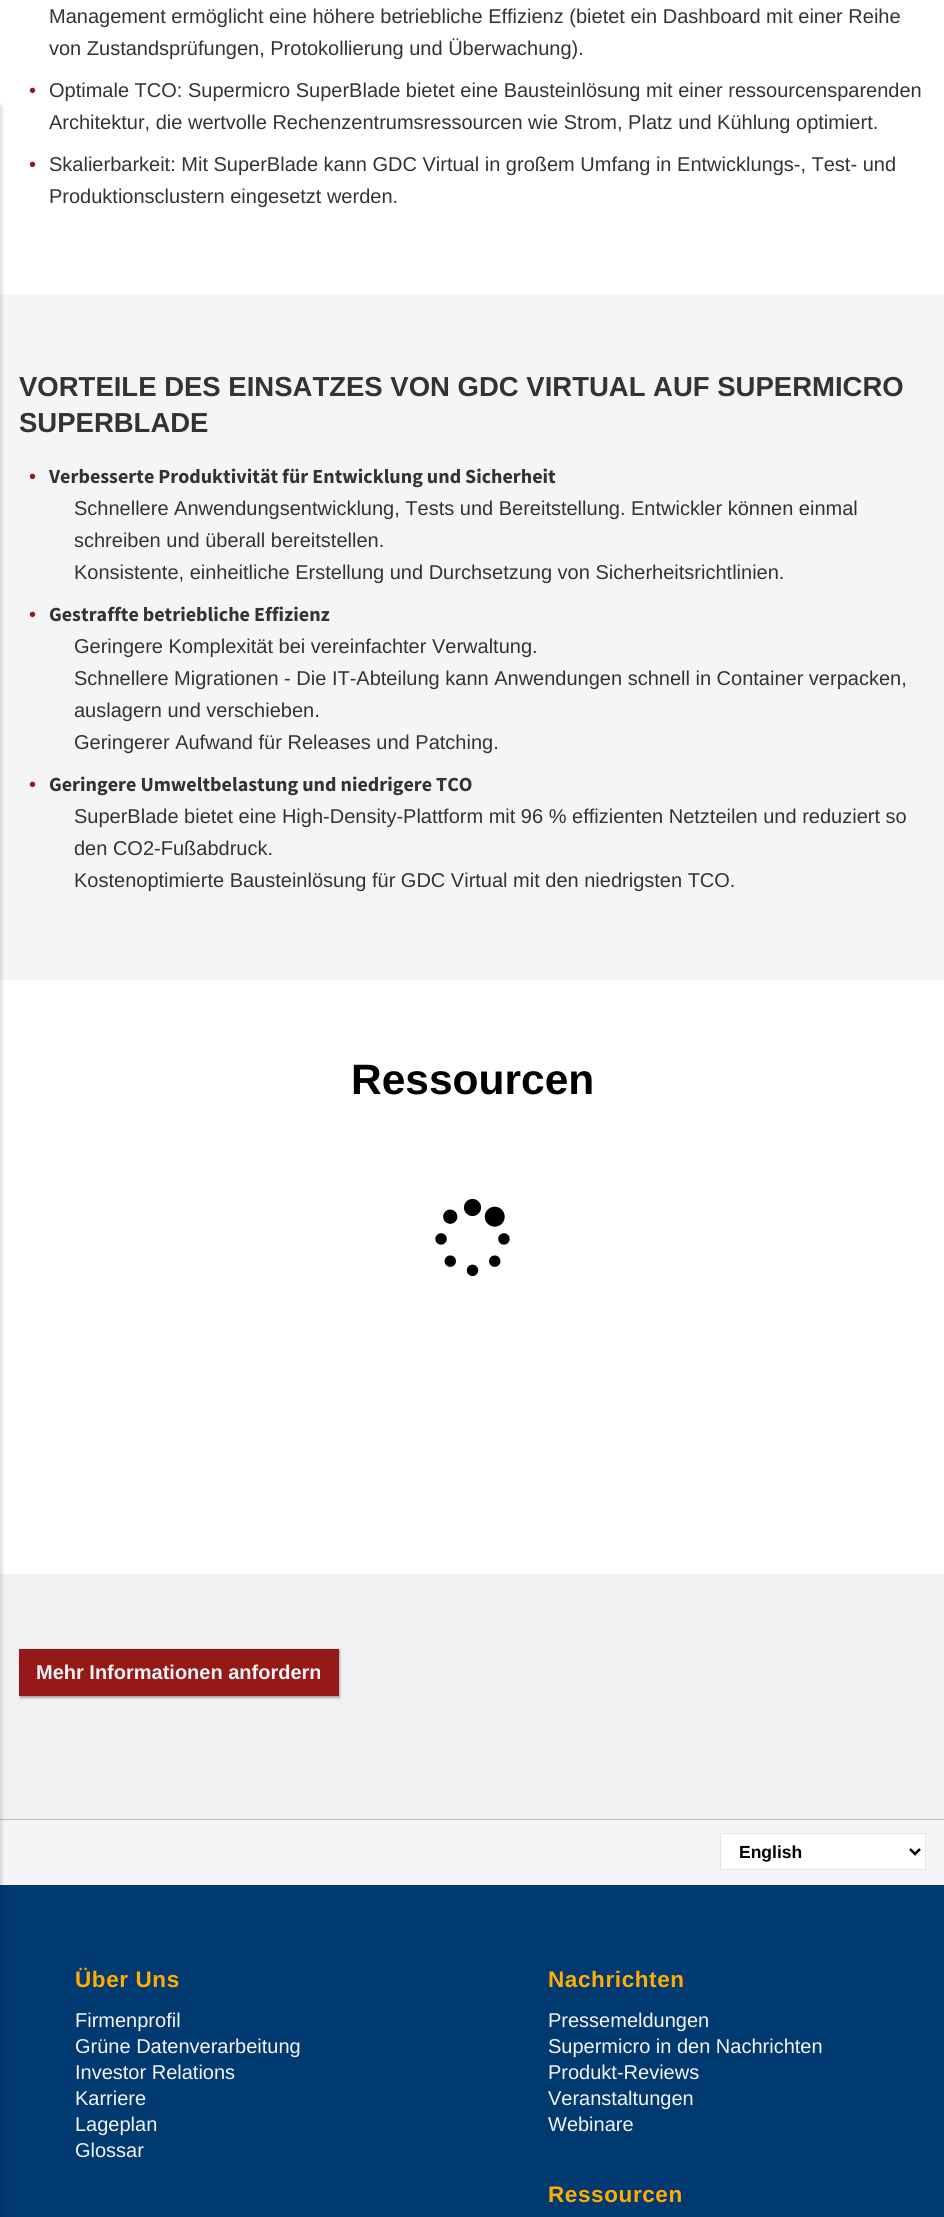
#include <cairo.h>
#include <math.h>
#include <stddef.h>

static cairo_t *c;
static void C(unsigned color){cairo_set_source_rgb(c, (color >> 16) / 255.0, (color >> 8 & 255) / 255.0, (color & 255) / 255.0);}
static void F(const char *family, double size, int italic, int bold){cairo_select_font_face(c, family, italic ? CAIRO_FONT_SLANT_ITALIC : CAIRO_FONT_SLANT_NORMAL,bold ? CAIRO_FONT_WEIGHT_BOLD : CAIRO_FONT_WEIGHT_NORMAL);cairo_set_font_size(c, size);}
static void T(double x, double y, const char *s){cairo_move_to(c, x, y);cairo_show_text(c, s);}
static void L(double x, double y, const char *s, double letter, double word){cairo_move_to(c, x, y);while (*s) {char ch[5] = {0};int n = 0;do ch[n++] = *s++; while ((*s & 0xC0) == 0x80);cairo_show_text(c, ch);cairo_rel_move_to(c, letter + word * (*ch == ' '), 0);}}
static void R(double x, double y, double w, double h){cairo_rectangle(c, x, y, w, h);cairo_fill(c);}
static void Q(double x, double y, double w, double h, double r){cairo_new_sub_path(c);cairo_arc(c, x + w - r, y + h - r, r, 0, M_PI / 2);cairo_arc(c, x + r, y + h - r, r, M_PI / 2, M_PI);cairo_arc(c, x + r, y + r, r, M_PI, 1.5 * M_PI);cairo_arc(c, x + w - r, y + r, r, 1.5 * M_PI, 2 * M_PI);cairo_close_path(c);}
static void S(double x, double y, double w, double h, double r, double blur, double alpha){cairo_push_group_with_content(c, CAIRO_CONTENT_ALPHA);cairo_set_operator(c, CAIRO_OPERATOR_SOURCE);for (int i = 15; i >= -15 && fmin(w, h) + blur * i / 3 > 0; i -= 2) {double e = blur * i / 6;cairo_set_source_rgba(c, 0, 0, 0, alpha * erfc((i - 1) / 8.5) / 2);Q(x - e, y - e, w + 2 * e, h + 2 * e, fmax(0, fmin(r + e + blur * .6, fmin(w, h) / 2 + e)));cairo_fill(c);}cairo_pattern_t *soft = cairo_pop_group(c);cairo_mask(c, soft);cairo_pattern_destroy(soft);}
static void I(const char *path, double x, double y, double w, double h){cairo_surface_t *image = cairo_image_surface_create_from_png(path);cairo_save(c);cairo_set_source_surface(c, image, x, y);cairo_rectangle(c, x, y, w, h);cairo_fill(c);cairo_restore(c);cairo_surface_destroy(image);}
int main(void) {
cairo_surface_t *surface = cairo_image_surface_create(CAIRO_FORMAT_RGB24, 944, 2217);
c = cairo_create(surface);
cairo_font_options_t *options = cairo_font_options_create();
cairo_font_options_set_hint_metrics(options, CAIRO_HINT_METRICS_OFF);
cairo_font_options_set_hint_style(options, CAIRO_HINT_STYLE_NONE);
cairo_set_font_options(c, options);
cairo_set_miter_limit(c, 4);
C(0xf1f1f1);
cairo_paint(c);
C(0xffffff);
R(0,0,944,295);
C(0xf5f5f5);
R(0,295,944,685);
C(0xffffff);
R(0,980,944,594);
C(0xf5f5f5);
R(0,1820,944,65);
C(0xc0c0c0);
R(0,1819,944,1);
C(0x003a70);
R(0,1885,944,332);
C(0x000000);
S(-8,106,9,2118,0,2.5,.2);
F("Liberation Sans",20,0,0);
C(0x333333);
T(49,23,"Management ermöglicht eine höhere betriebliche Effizienz (bietet ein Dashboard mit einer Reihe");
T(49,55,"von Zustandsprüfungen, Protokollierung und Überwachung).");
C(0x961919);
T(29,97,"•");
C(0x333333);
T(49,97,"Optimale TCO: Supermicro SuperBlade bietet eine Bausteinlösung mit einer ressourcensparenden");
T(49,129,"Architektur, die wertvolle Rechenzentrumsressourcen wie Strom, Platz und Kühlung optimiert.");
C(0x961919);
T(29,171,"•");
C(0x333333);
T(49,171,"Skalierbarkeit: Mit SuperBlade kann GDC Virtual in großem Umfang in Entwicklungs-, Test- und");
T(49,203,"Produktionsclustern eingesetzt werden.");
F("Liberation Sans",27.5,0,1);
T(19,396,"VORTEILE DES EINSATZES VON GDC VIRTUAL AUF SUPERMICRO");
T(19,432,"SUPERBLADE");
F("Liberation Sans",20,0,0);
C(0x961919);
T(29,483,"•");
F("Source Sans Pro",20,0,1);
C(0x333333);
T(49,483,"Verbesserte Produktivität für Entwicklung und Sicherheit");
F("Liberation Sans",20,0,0);
T(74,515,"Schnellere Anwendungsentwicklung, Tests und Bereitstellung. Entwickler können einmal");
T(74,547,"schreiben und überall bereitstellen.");
T(74,579,"Konsistente, einheitliche Erstellung und Durchsetzung von Sicherheitsrichtlinien.");
C(0x961919);
T(29,621,"•");
F("Source Sans Pro",20,0,1);
C(0x333333);
T(49,621,"Gestraffte betriebliche Effizienz");
F("Liberation Sans",20,0,0);
T(74,653,"Geringere Komplexität bei vereinfachter Verwaltung.");
T(74,685,"Schnellere Migrationen - Die IT-Abteilung kann Anwendungen schnell in Container verpacken,");
T(74,717,"auslagern und verschieben.");
T(74,749,"Geringerer Aufwand für Releases und Patching.");
C(0x961919);
T(29,791,"•");
F("Source Sans Pro",20,0,1);
C(0x333333);
T(49,791,"Geringere Umweltbelastung und niedrigere TCO");
F("Liberation Sans",20,0,0);
T(74,823,"SuperBlade bietet eine High-Density-Plattform mit 96 % effizienten Netzteilen und reduziert so");
T(74,855,"den CO2-Fußabdruck.");
T(74,887,"Kostenoptimierte Bausteinlösung für GDC Virtual mit den niedrigsten TCO.");
F("Liberation Sans",42.5,0,1);
C(0x000000);
T(351,1094,"Ressourcen");
I("1.png",435,1198,75,79);
C(0x000000);
S(20,1650,320,48,0,1,.3);
C(0x961919);
R(19,1649,320,47);
F("Liberation Sans",20,0,1);
C(0xf4f4f4);
T(36,1679,"Mehr Informationen anfordern");
C(0xffffff);
cairo_rectangle(c,720.5,1833.5,205,36);
cairo_fill_preserve(c);
C(0xe6e6e6);
cairo_set_line_width(c,1);
cairo_stroke(c);
cairo_new_path(c);
cairo_move_to(c,910,1849);
cairo_line_to(c,915,1854);
cairo_line_to(c,920,1849);
C(0x000000);
cairo_set_line_width(c,2.5);
cairo_stroke(c);
F("Liberation Sans",17.5,0,1);
T(739,1858,"English");
F("Liberation Sans",22.5,0,1);
C(0xffad00);
L(75,1987,"Über Uns",.6,0);
F("Liberation Sans",20,0,0);
C(0xf4f4f4);
T(75,2027,"Firmenprofil");
T(75,2053,"Grüne Datenverarbeitung");
T(75,2079,"Investor Relations");
T(75,2105,"Karriere");
T(75,2131,"Lageplan");
T(75,2157,"Glossar");
F("Liberation Sans",22.5,0,1);
C(0xffad00);
L(548,1987,"Nachrichten",.6,0);
F("Liberation Sans",20,0,0);
C(0xf4f4f4);
T(548,2027,"Pressemeldungen");
T(548,2053,"Supermicro in den Nachrichten");
T(548,2079,"Produkt-Reviews");
T(548,2105,"Veranstaltungen");
T(548,2131,"Webinare");
F("Liberation Sans",22.5,0,1);
C(0xffad00);
L(548,2202,"Ressourcen",.6,0);
cairo_surface_write_to_png(surface, "o.png");
cairo_font_options_destroy(options);
cairo_destroy(c);
cairo_surface_destroy(surface);
return 0;
}
